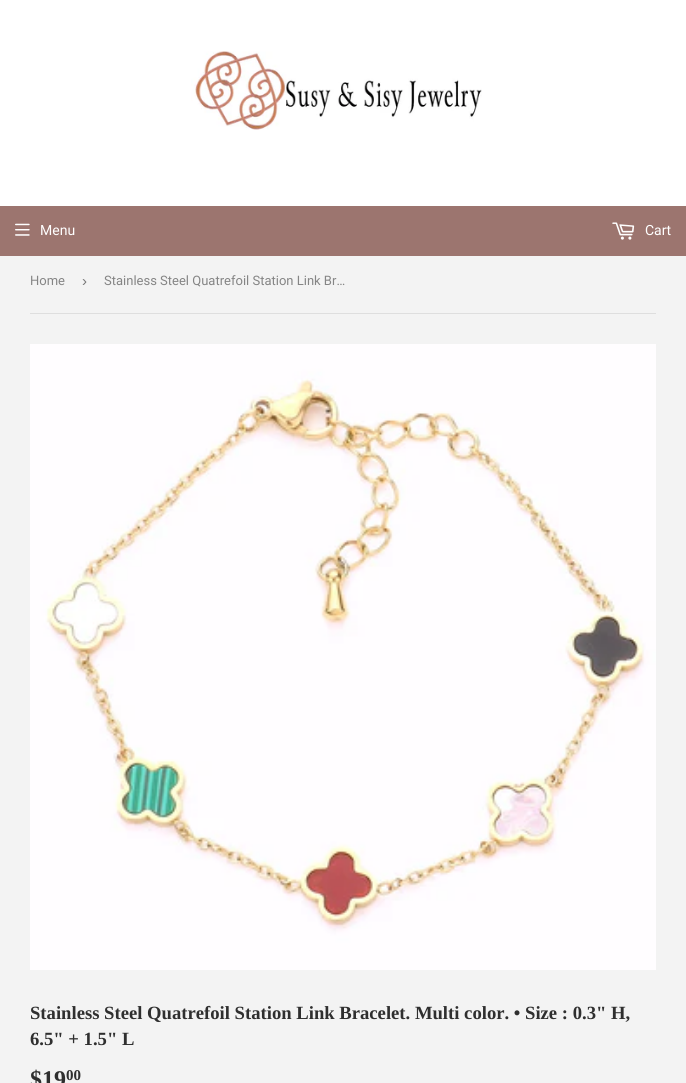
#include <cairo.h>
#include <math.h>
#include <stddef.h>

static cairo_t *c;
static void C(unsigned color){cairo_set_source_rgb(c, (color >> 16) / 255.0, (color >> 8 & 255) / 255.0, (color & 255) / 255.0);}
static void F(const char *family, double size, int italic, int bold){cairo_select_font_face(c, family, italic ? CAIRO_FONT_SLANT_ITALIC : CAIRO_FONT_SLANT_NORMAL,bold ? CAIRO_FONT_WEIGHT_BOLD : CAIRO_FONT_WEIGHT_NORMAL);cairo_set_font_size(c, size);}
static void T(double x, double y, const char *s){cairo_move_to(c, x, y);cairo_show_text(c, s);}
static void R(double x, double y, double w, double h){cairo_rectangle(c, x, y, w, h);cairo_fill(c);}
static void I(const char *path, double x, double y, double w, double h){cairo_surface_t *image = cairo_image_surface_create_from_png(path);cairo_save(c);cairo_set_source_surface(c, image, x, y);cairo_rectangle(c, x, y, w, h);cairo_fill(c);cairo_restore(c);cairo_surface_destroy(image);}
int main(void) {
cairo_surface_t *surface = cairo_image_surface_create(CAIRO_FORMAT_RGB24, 686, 1083);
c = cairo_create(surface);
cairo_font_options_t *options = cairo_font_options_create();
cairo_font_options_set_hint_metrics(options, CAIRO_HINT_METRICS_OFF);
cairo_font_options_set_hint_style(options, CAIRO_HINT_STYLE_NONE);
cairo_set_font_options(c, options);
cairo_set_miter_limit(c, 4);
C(0xf3f3f3);
cairo_paint(c);
C(0xffffff);
R(0,0,686,206);
I("1.png",191,51,291,79);
C(0x9c756f);
R(0,206,686,50);
I("2.png",15,223,15,13);
F("Roboto",14,0,0);
C(0xffffff);
T(40,235,"Menu");
I("3.png",612,222,23,18);
T(645,235,"Cart");
C(0xdedede);
R(30,313,626,1);
F("Roboto",13,0,0);
C(0x858585);
T(30,285,"Home");
F("Liberation Sans",15,0,0);
C(0x767676);
T(82,286,"›");
F("Roboto",13,0,0);
C(0x858585);
T(104,285,"Stainless Steel Quatrefoil Station Link Br…");
I("4.png",30,344,626,626);
F("Liberation Serif",18.65,0,1);
C(0x2f2f2f);
T(30,1019,"Stainless Steel Quatrefoil Station Link Bracelet. Multi color. • Size : 0.3\" H,");
T(30,1045,"6.5\" + 1.5\" L");
F("Liberation Serif",24,0,1);
T(30,1087,"$19");
F("Liberation Serif",15,0,1);
T(66,1080,"00");
cairo_surface_write_to_png(surface, "o.png");
cairo_font_options_destroy(options);
cairo_destroy(c);
cairo_surface_destroy(surface);
return 0;
}
